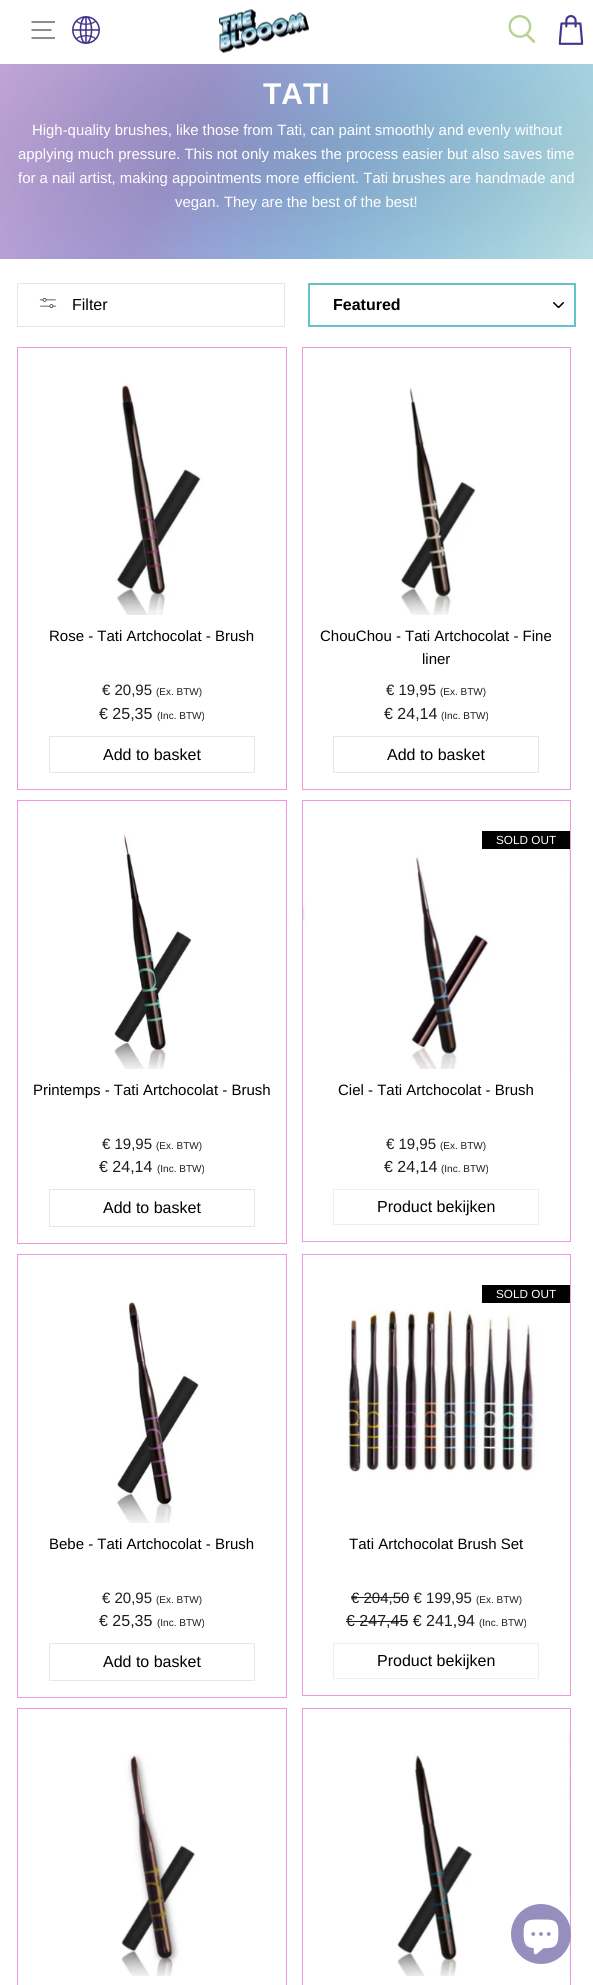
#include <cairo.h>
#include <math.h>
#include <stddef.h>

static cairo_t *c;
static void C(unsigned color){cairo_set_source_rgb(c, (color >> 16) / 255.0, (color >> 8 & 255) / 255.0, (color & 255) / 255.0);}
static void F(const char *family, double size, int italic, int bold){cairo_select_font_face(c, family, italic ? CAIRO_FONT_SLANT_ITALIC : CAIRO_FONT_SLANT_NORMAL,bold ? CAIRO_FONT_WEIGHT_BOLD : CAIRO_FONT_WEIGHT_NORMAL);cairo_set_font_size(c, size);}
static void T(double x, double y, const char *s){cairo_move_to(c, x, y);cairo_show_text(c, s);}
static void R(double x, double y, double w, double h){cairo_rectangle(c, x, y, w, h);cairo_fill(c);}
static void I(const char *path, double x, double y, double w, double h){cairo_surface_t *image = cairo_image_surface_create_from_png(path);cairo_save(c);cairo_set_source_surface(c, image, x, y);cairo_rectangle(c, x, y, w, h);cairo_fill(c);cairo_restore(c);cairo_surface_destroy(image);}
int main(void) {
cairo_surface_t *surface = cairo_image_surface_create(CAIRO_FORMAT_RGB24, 593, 1985);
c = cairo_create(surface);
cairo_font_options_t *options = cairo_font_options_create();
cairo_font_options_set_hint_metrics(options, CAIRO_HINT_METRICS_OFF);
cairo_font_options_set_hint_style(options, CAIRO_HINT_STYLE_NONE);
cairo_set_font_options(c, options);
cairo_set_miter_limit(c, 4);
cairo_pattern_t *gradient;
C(0xffffff);
cairo_paint(c);
I("1.png",219,9,90,44);
cairo_new_path(c);
cairo_move_to(c,31.5,22);
cairo_line_to(c,55,22);
cairo_move_to(c,31.5,30);
cairo_line_to(c,51.5,30);
cairo_move_to(c,31.5,38);
cairo_line_to(c,55,38);
C(0x000000);
cairo_set_line_width(c,.9);
cairo_stroke(c);
I("2.png",72,16,28,28);
I("3.png",508,15,28,28);
I("4.png",558,15,26,30);
gradient = cairo_pattern_create_linear(-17,-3.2,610,289);
cairo_pattern_add_color_stop_rgba(gradient,0,0.831,0.671,0.863,1);
cairo_pattern_add_color_stop_rgba(gradient,.02,0.796,0.655,0.855,1);
cairo_pattern_add_color_stop_rgba(gradient,.07,0.761,0.647,0.847,1);
cairo_pattern_add_color_stop_rgba(gradient,.15,0.725,0.635,0.839,1);
cairo_pattern_add_color_stop_rgba(gradient,.24,0.678,0.612,0.831,1);
cairo_pattern_add_color_stop_rgba(gradient,.35,0.635,0.6,0.824,1);
cairo_pattern_add_color_stop_rgba(gradient,.47,0.592,0.671,0.867,1);
cairo_pattern_add_color_stop_rgba(gradient,.59,0.576,0.729,0.882,1);
cairo_pattern_add_color_stop_rgba(gradient,.72,0.608,0.788,0.886,1);
cairo_pattern_add_color_stop_rgba(gradient,.86,0.663,0.835,0.882,1);
cairo_pattern_add_color_stop_rgba(gradient,1,0.753,0.878,0.886,1);
cairo_set_source(c,gradient);
cairo_pattern_destroy(gradient);
R(0,64,593,195);
gradient = cairo_pattern_create_radial(0,0,0,0,0,1);
cairo_pattern_set_matrix(gradient, &(cairo_matrix_t){1.0 / 678, 0, 0, 1.0 / 240, -1.0 * 297 / 678, -1.0 * 149 / 240});
cairo_pattern_add_color_stop_rgba(gradient,0,0,0,0,.12);
cairo_pattern_add_color_stop_rgba(gradient,.6,0,0,0,0);
cairo_set_source(c,gradient);
cairo_pattern_destroy(gradient);
R(0,64,593,195);
F("Liberation Sans",30,0,1);
C(0xffffff);
T(263,104,"TATI");
F("Liberation Sans",14.9,0,0);
T(32,135,"High-quality brushes, like those from Tati, can paint smoothly and evenly without");
T(18,159,"applying much pressure. This not only makes the process easier but also saves time");
T(18,183,"for a nail artist, making appointments more efficient. Tati brushes are handmade and");
T(175,207,"vegan. They are the best of the best!");
cairo_rectangle(c,17.5,283.5,267,43);
C(0xe8e8e1);
cairo_set_line_width(c,1);
cairo_stroke(c);
I("5.png",39,298,18,10);
F("Liberation Sans",16,0,0);
C(0x000000);
T(72,310,"Filter");
I("6.png",553,302,11,6);
cairo_rectangle(c,309,284,266,42);
C(0x64c2ca);
cairo_set_line_width(c,2);
cairo_stroke(c);
F("Liberation Sans",16,0,1);
C(0x000000);
T(333,310,"Featured");
cairo_rectangle(c,17.5,347.5,269,442);
C(0xeb98e1);
cairo_set_line_width(c,1);
cairo_stroke(c);
I("7.png",116,383,86,232);
F("Liberation Sans",15,0,0);
C(0x000000);
T(49,641,"Rose - Tati Artchocolat - Brush");
C(0x1c1d1d);
T(102,695,"€ 20,95");
F("Liberation Sans",10,0,0);
T(156,695,"(Ex. BTW)");
F("Liberation Sans",16,0,0);
T(99,719,"€ 25,35");
F("Liberation Sans",10,0,0);
T(157,719,"(Inc. BTW)");
cairo_rectangle(c,49.5,736.5,205,36);
C(0xe8e8e1);
cairo_stroke(c);
F("Liberation Sans",16,0,0);
C(0x000000);
T(103,760,"Add to basket");
cairo_rectangle(c,302.5,347.5,268,442);
C(0xeb98e1);
cairo_stroke(c);
I("8.png",401,388,75,227);
F("Liberation Sans",15,0,0);
C(0x000000);
T(320,641,"ChouChou - Tati Artchocolat - Fine");
T(422,664,"liner");
C(0x1c1d1d);
T(386,695,"€ 19,95");
F("Liberation Sans",10,0,0);
T(440,695,"(Ex. BTW)");
F("Liberation Sans",16,0,0);
T(384,719,"€ 24,14");
F("Liberation Sans",10,0,0);
T(441,719,"(Inc. BTW)");
cairo_rectangle(c,333.5,736.5,205,36);
C(0xe8e8e1);
cairo_stroke(c);
F("Liberation Sans",16,0,0);
C(0x000000);
T(387,760,"Add to basket");
cairo_rectangle(c,17.5,800.5,269,443);
C(0xeb98e1);
cairo_stroke(c);
I("9.png",114,834,78,235);
F("Liberation Sans",15,0,0);
C(0x000000);
T(33,1095,"Printemps - Tati Artchocolat - Brush");
C(0x1c1d1d);
T(102,1149,"€ 19,95");
F("Liberation Sans",10,0,0);
T(156,1149,"(Ex. BTW)");
F("Liberation Sans",16,0,0);
T(99,1172,"€ 24,14");
F("Liberation Sans",10,0,0);
T(157,1172,"(Inc. BTW)");
cairo_rectangle(c,49.5,1189.5,205,37);
C(0xe8e8e1);
cairo_stroke(c);
F("Liberation Sans",16,0,0);
C(0x000000);
T(103,1213,"Add to basket");
cairo_rectangle(c,302.5,800.5,268,441);
C(0xeb98e1);
cairo_stroke(c);
I("10.png",303,847,267,222);
C(0x000000);
R(482,831,88,18);
F("Liberation Sans",11.75,0,0);
C(0xffffff);
T(496,844,"SOLD OUT");
F("Liberation Sans",15,0,0);
C(0x000000);
T(338,1095,"Ciel - Tati Artchocolat - Brush");
C(0x1c1d1d);
T(386,1149,"€ 19,95");
F("Liberation Sans",10,0,0);
T(440,1149,"(Ex. BTW)");
F("Liberation Sans",16,0,0);
T(384,1172,"€ 24,14");
F("Liberation Sans",10,0,0);
T(441,1172,"(Inc. BTW)");
cairo_rectangle(c,333.5,1189.5,205,35);
C(0xeeeeee);
cairo_stroke(c);
F("Liberation Sans",16,0,0);
C(0x000000);
T(377,1212,"Product bekijken");
cairo_rectangle(c,17.5,1254.5,269,443);
C(0xeb98e1);
cairo_stroke(c);
I("11.png",116,1302,83,221);
F("Liberation Sans",15,0,0);
C(0x000000);
T(49,1549,"Bebe - Tati Artchocolat - Brush");
C(0x1c1d1d);
T(102,1603,"€ 20,95");
F("Liberation Sans",10,0,0);
T(156,1603,"(Ex. BTW)");
F("Liberation Sans",16,0,0);
T(99,1626,"€ 25,35");
F("Liberation Sans",10,0,0);
T(157,1626,"(Inc. BTW)");
cairo_rectangle(c,49.5,1643.5,205,37);
C(0xe8e8e1);
cairo_stroke(c);
F("Liberation Sans",16,0,0);
C(0x000000);
T(103,1667,"Add to basket");
cairo_rectangle(c,302.5,1254.5,268,441);
C(0xeb98e1);
cairo_stroke(c);
C(0x000000);
R(482,1285,88,18);
F("Liberation Sans",11.75,0,0);
C(0xffffff);
T(496,1298,"SOLD OUT");
I("12.png",345,1308,195,165);
F("Liberation Sans",15,0,0);
C(0x000000);
T(349,1549,"Tati Artchocolat Brush Set");
C(0x1c1d1d);
T(351,1603,"€ 204,50 € 199,95");
R(351,1597,58,1);
F("Liberation Sans",10,0,0);
T(476,1603,"(Ex. BTW)");
F("Liberation Sans",16,0,0);
T(346,1626,"€ 247,45 € 241,94");
R(346,1621,62,1);
F("Liberation Sans",10,0,0);
T(479,1626,"(Inc. BTW)");
cairo_rectangle(c,333.5,1643.5,205,35);
C(0xeeeeee);
cairo_stroke(c);
F("Liberation Sans",16,0,0);
C(0x000000);
T(377,1666,"Product bekijken");
cairo_rectangle(c,17.5,1708.5,269,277);
C(0xeb98e1);
cairo_stroke(c);
I("13.png",121,1752,74,224);
cairo_rectangle(c,302.5,1708.5,268,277);
cairo_stroke(c);
I("14.png",397,1733,173,243);
C(0x968fbe);
cairo_arc(c,541,1934,30,0,2 * M_PI);
cairo_fill(c);
I("15.png",523,1919,36,36);
cairo_surface_write_to_png(surface, "o.png");
cairo_font_options_destroy(options);
cairo_destroy(c);
cairo_surface_destroy(surface);
return 0;
}
